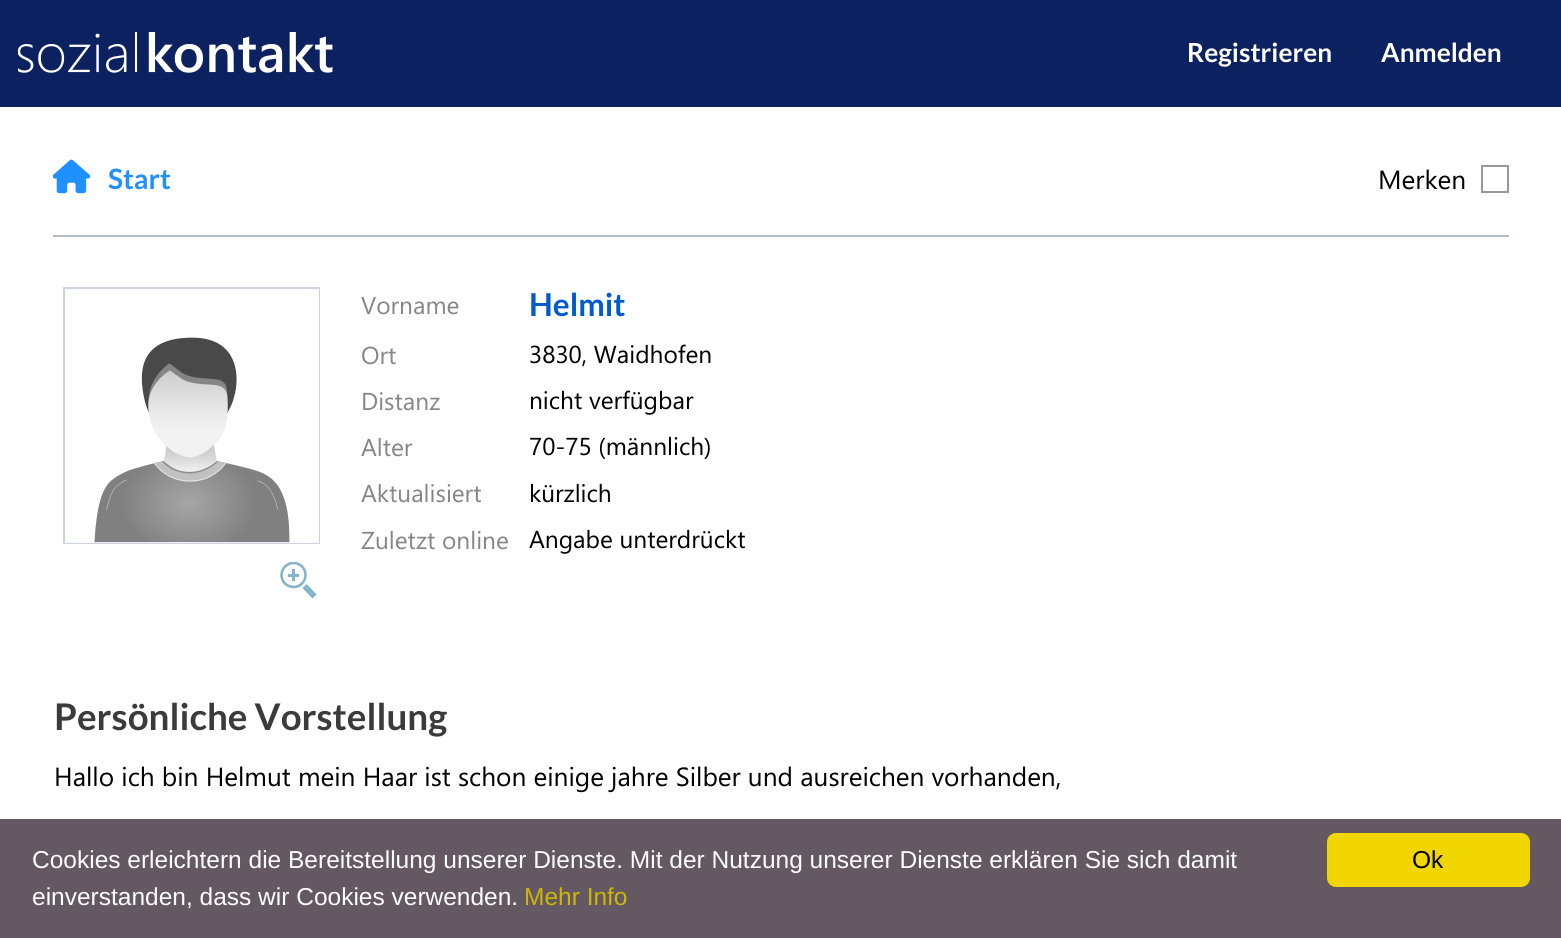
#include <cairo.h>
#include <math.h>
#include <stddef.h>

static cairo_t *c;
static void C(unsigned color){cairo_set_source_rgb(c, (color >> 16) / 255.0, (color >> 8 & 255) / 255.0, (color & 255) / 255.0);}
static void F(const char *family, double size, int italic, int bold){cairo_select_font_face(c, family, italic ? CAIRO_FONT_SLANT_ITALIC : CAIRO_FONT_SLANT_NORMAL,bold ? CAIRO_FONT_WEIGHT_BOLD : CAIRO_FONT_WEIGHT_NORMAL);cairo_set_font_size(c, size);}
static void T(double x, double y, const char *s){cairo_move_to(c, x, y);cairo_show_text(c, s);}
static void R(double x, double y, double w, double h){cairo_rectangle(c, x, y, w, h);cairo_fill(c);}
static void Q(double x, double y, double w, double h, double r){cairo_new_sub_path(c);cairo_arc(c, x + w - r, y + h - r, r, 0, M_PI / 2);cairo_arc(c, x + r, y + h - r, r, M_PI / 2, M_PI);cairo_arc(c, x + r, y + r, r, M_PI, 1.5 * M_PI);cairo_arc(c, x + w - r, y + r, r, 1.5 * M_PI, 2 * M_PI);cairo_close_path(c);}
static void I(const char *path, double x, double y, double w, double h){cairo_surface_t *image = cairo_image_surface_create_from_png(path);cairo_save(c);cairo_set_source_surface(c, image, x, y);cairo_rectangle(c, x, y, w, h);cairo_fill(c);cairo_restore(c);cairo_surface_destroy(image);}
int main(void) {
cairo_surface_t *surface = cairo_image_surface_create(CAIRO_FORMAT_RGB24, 1561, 938);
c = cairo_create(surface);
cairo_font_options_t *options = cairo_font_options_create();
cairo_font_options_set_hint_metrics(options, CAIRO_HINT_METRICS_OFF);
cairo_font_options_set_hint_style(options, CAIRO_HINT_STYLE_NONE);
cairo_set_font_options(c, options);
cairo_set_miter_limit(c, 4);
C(0x0c2160);
cairo_paint(c);
I("1.png",18,32,315,41);
F("Lato",26.25,0,1);
C(0xffffff);
T(1187,62,"Registrieren");
T(1381,62,"Anmelden");
R(0,107,1561,712);
I("2.png",53,159,38,35);
F("Lato",28,0,1);
C(0x1e90ff);
T(108,189,"Start");
F("Segoe UI",26.25,0,0);
C(0x000000);
T(1378,189,"Merken");
cairo_rectangle(c,1482,166,26,26);
C(0x999999);
cairo_stroke(c);
C(0xb4bdc6);
R(53,235,1456,2);
cairo_rectangle(c,64,288,255,255);
C(0xccd4e2);
cairo_stroke(c);
I("3.png",65,289,254,254);
cairo_save(c);
cairo_rectangle(c,280,562,37,37);
cairo_clip(c);
cairo_arc(c,293.5,575,12,0,2 * M_PI);
C(0x84b5cc);
cairo_set_line_width(c,2.6);
cairo_stroke(c);
cairo_restore(c);
C(0x84b5cc);
R(292,569,3,12);
R(288,574,11,3);
cairo_new_path(c);
cairo_move_to(c,304.5,586);
cairo_line_to(c,314.5,596.5);
cairo_set_line_width(c,5.8);
cairo_stroke(c);
F("Segoe UI",24.5,0,0);
C(0x868686);
T(361,314,"Vorname");
F("Lato",31.5,0,1);
C(0x005bcc);
T(529,316,"Helmit");
F("Segoe UI",24.5,0,0);
C(0x868686);
T(361,364,"Ort");
C(0x000000);
T(529,363,"3830, Waidhofen");
C(0x868686);
T(361,410,"Distanz");
C(0x000000);
T(529,409,"nicht verfügbar");
C(0x868686);
T(361,456,"Alter");
C(0x000000);
T(529,455,"70-75 (männlich)");
C(0x868686);
T(361,502,"Aktualisiert");
C(0x000000);
T(529,502,"kürzlich");
C(0x868686);
T(361,549,"Zuletzt online");
C(0x000000);
T(529,548,"Angabe unterdrückt");
F("Lato",36.75,0,1);
C(0x3b3b3b);
T(54,730,"Persönliche Vorstellung");
F("Segoe UI",26.25,0,0);
C(0x000000);
T(54,786,"Hallo ich bin Helmut mein Haar ist schon einige jahre Silber und ausreichen vorhanden,");
C(0x645862);
R(0,819,1561,119);
F("Liberation Sans",24.5,0,0);
C(0xffffff);
T(32,868,"Cookies erleichtern die Bereitstellung unserer Dienste. Mit der Nutzung unserer Dienste erklären Sie sich damit");
T(32,905,"einverstanden, dass wir Cookies verwenden.");
C(0xceb606);
T(524,905,"Mehr Info");
C(0xf1d600);
Q(1327,833,203,54,9);
cairo_fill(c);
C(0x000000);
T(1412,868,"Ok");
cairo_surface_write_to_png(surface, "o.png");
cairo_font_options_destroy(options);
cairo_destroy(c);
cairo_surface_destroy(surface);
return 0;
}
